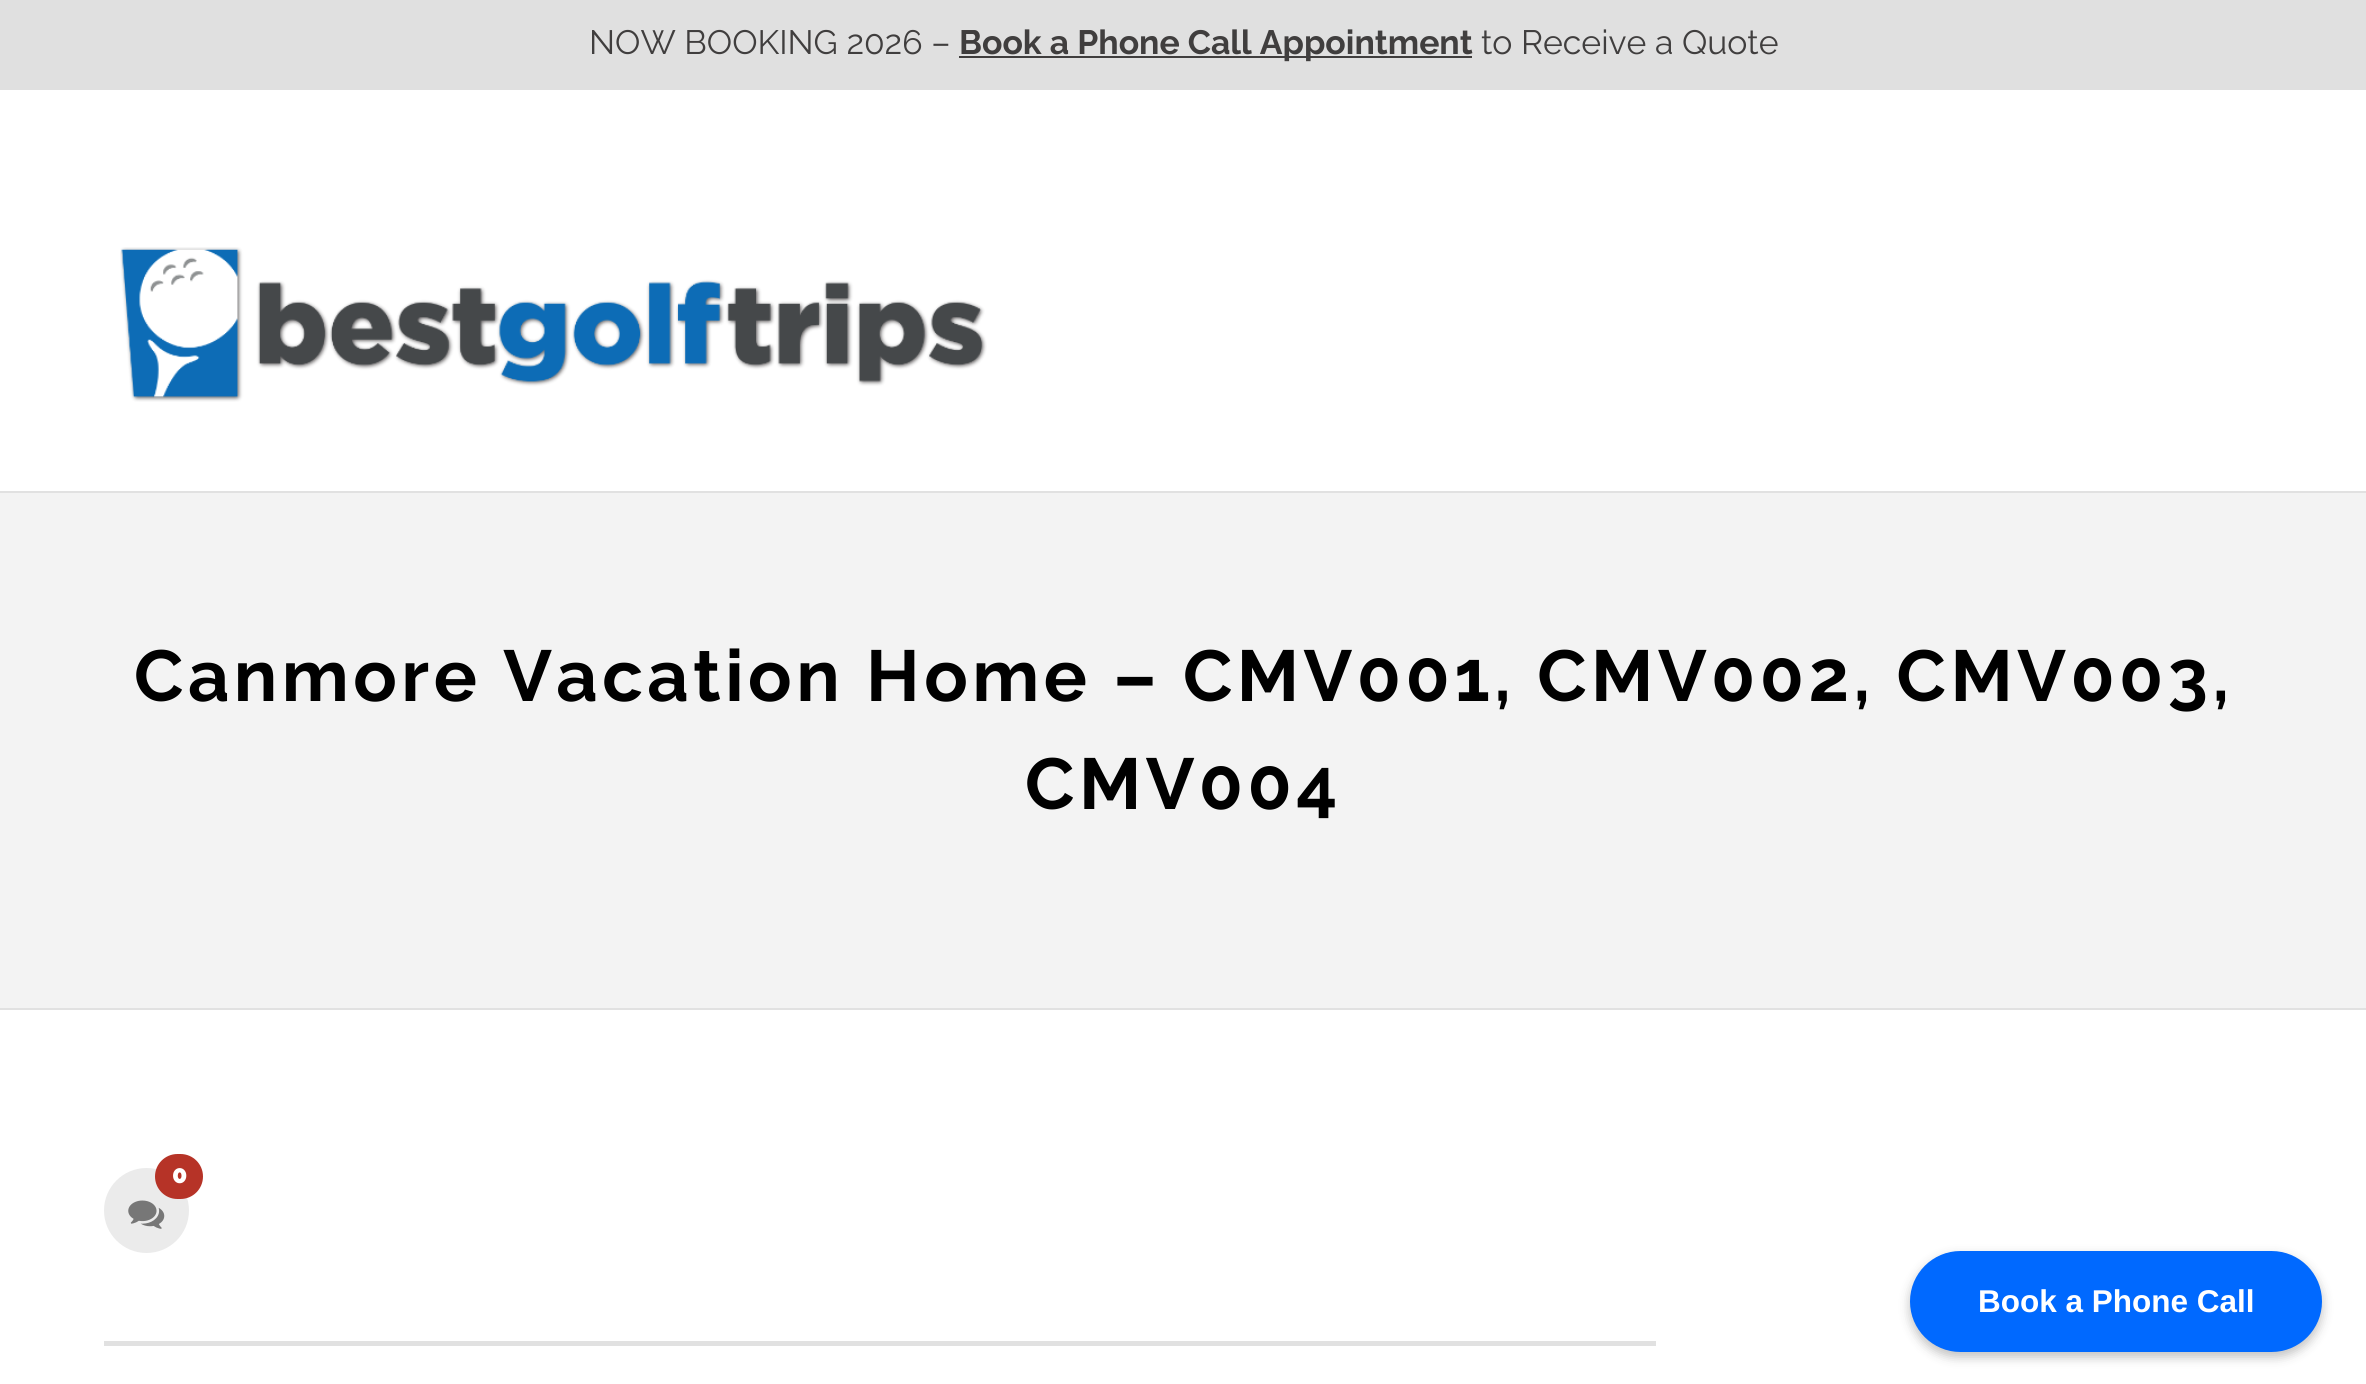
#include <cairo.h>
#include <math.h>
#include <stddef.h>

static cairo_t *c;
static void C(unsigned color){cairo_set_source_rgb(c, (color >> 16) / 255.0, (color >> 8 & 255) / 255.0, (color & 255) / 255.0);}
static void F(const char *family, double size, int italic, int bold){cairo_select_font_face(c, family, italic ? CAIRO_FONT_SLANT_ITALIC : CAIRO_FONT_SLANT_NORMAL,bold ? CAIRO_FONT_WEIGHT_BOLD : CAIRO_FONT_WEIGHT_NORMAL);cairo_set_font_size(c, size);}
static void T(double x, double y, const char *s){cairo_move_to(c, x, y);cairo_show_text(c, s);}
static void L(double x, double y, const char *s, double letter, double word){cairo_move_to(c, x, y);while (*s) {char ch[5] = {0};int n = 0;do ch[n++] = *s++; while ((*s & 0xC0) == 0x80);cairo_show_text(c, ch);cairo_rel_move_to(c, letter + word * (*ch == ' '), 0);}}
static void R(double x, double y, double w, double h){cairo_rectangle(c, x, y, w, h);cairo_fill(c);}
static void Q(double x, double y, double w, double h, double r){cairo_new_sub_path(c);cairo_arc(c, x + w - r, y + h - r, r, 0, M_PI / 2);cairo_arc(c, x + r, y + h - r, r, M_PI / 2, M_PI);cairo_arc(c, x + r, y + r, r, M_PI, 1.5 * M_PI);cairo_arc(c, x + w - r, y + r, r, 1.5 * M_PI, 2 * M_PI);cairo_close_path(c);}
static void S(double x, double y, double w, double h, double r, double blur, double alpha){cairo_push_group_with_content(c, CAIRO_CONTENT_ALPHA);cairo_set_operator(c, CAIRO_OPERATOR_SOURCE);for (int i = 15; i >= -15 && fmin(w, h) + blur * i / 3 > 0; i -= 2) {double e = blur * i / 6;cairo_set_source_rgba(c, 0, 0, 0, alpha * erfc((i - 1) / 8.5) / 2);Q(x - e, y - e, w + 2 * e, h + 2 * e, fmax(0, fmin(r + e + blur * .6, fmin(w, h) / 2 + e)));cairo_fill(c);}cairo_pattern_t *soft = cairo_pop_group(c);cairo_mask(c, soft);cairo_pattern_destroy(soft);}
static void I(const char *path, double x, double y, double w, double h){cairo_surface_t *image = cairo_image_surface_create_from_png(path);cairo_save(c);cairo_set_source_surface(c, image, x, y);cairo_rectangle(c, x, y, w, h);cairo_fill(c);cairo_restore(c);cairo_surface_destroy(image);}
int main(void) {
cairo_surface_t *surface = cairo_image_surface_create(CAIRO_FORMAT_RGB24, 2366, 1384);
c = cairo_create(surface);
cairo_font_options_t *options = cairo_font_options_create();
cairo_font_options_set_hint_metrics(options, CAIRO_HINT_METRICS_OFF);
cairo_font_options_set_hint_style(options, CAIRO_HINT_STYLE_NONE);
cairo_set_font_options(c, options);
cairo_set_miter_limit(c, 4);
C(0xffffff);
cairo_paint(c);
C(0xe0e0e0);
R(0,0,2366,90);
F("Raleway",33.75,0,0);
C(0x403e3e);
T(589,54,"NOW BOOKING 2026 –");
R(959,56,513,2);
F("Raleway",33.75,0,1);
T(959,54,"Book a Phone Call Appointment");
F("Raleway",33.75,0,0);
T(1481,54,"to Receive a Quote");
C(0xe1e1e1);
R(0,491,2366,2);
I("1.png",120,247,867,155);
C(0xf3f3f3);
R(0,493,2366,515);
C(0xe1e1e1);
R(0,1008,2366,2);
F("Raleway",72,0,1);
C(0x000000);
L(134,701,"Canmore Vacation Home – CMV001, CMV002, CMV003,",4.5,0);
L(1025,809,"CMV004",4.5,0);
C(0xebebeb);
cairo_new_path(c);
cairo_arc(c,146.5,1210.5,42.5,0,2 * M_PI);
cairo_fill(c);
C(0xb63327);
Q(155,1154,48,45,22.5);
cairo_fill(c);
F("Raleway Black",25,0,0);
C(0xffffff);
T(172,1183,"0");
I("2.png",128,1200,37,29);
C(0xe1e1e1);
R(104,1341,1552,5);
C(0x000000);
S(1910,1256,412,101,50.5,5.5,.25);
C(0x0069ff);
Q(1910,1251,412,101,50.5);
cairo_fill(c);
F("Liberation Sans",31.5,0,1);
C(0xffffff);
T(1978,1312,"Book a Phone Call");
cairo_surface_write_to_png(surface, "o.png");
cairo_font_options_destroy(options);
cairo_destroy(c);
cairo_surface_destroy(surface);
return 0;
}
